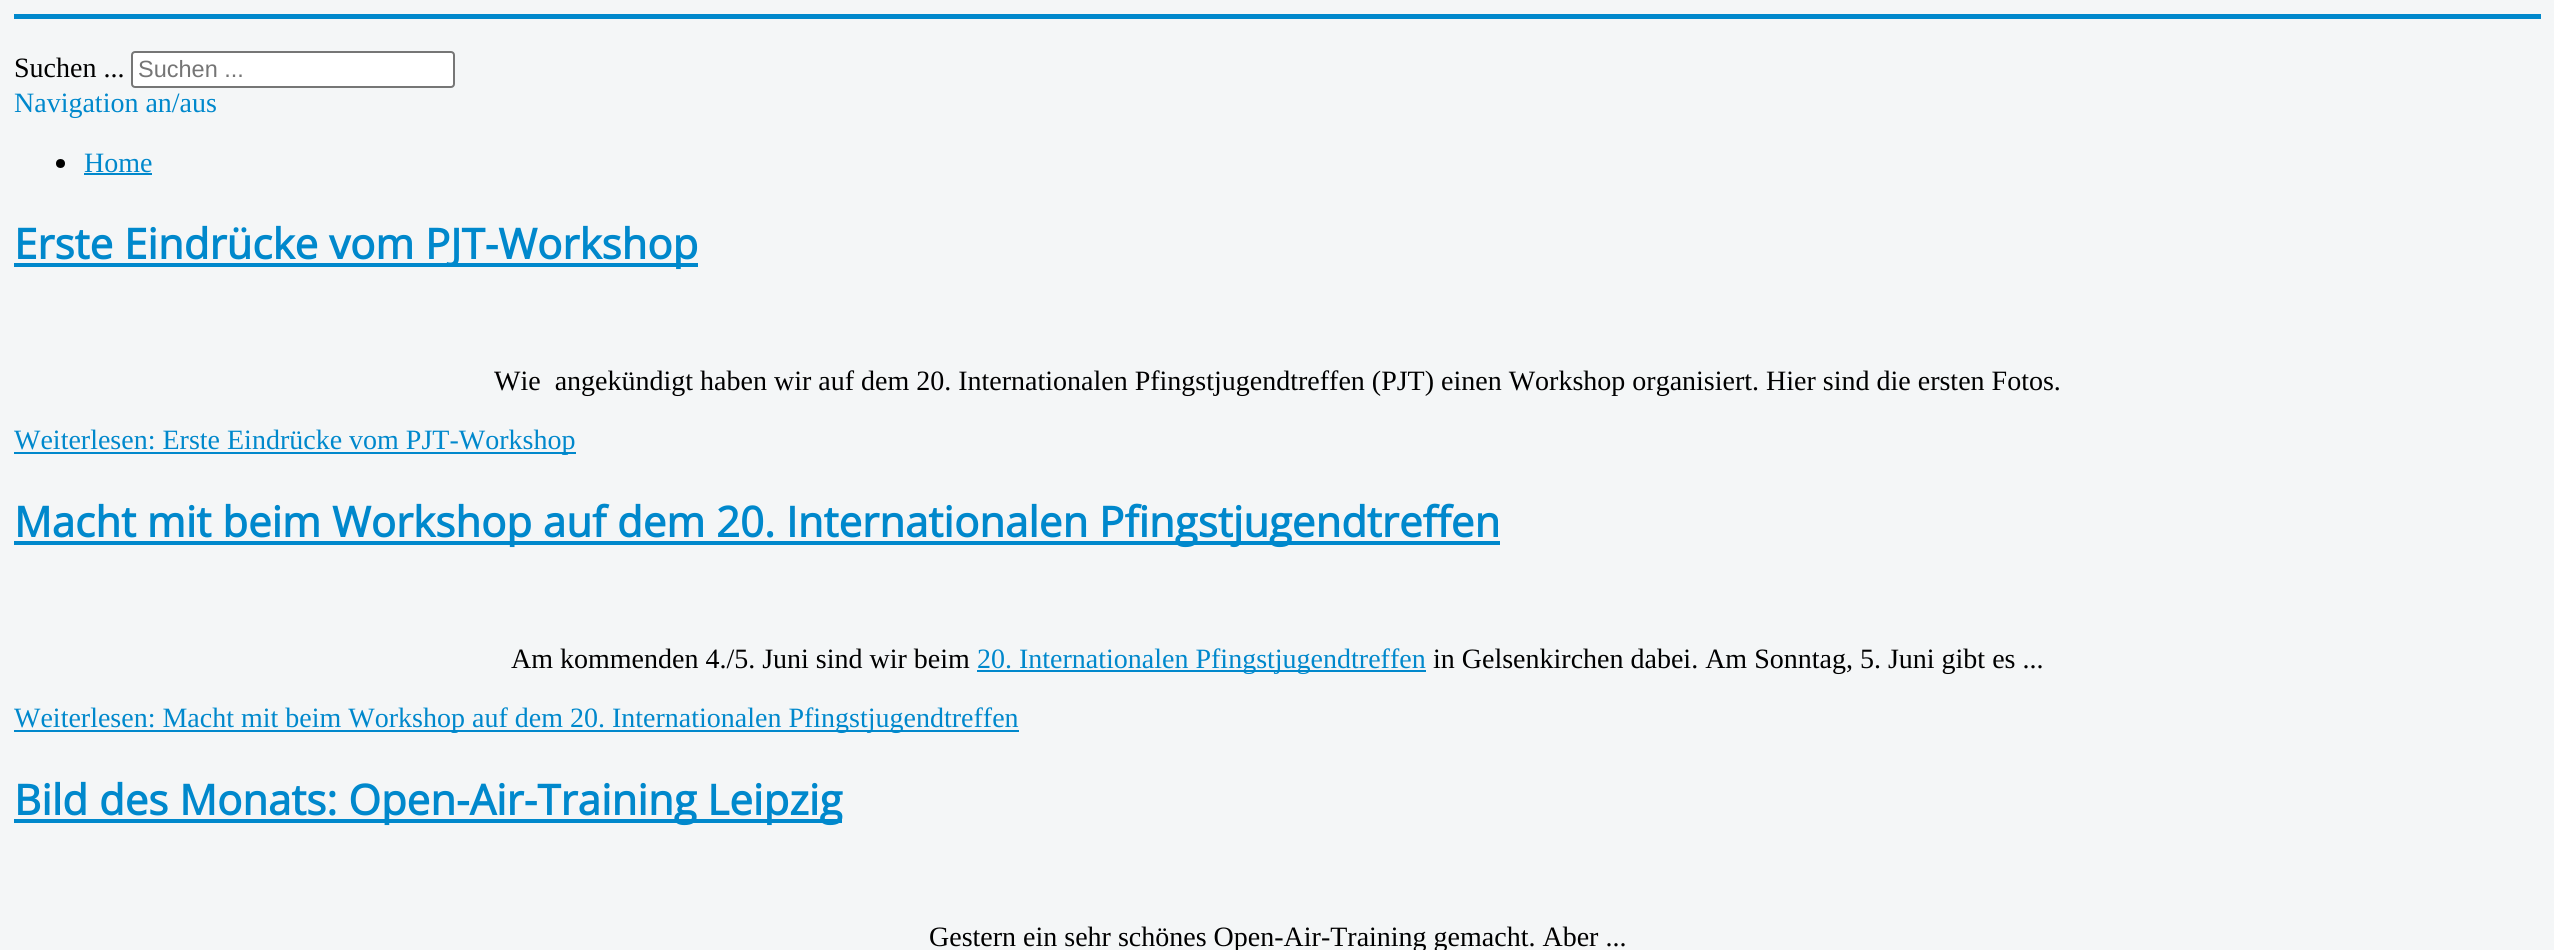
#include <cairo.h>
#include <math.h>
#include <stddef.h>

static cairo_t *c;
static void C(unsigned color){cairo_set_source_rgb(c, (color >> 16) / 255.0, (color >> 8 & 255) / 255.0, (color & 255) / 255.0);}
static void F(const char *family, double size, int italic, int bold){cairo_select_font_face(c, family, italic ? CAIRO_FONT_SLANT_ITALIC : CAIRO_FONT_SLANT_NORMAL,bold ? CAIRO_FONT_WEIGHT_BOLD : CAIRO_FONT_WEIGHT_NORMAL);cairo_set_font_size(c, size);}
static void T(double x, double y, const char *s){cairo_move_to(c, x, y);cairo_show_text(c, s);}
static void R(double x, double y, double w, double h){cairo_rectangle(c, x, y, w, h);cairo_fill(c);}
static void Q(double x, double y, double w, double h, double r){cairo_new_sub_path(c);cairo_arc(c, x + w - r, y + h - r, r, 0, M_PI / 2);cairo_arc(c, x + r, y + h - r, r, M_PI / 2, M_PI);cairo_arc(c, x + r, y + r, r, M_PI, 1.5 * M_PI);cairo_arc(c, x + w - r, y + r, r, 1.5 * M_PI, 2 * M_PI);cairo_close_path(c);}
int main(void) {
cairo_surface_t *surface = cairo_image_surface_create(CAIRO_FORMAT_RGB24, 2554, 950);
c = cairo_create(surface);
cairo_font_options_t *options = cairo_font_options_create();
cairo_font_options_set_hint_metrics(options, CAIRO_HINT_METRICS_OFF);
cairo_font_options_set_hint_style(options, CAIRO_HINT_STYLE_NONE);
cairo_set_font_options(c, options);
cairo_set_miter_limit(c, 4);
C(0xf4f6f7);
cairo_paint(c);
C(0x0088cc);
R(14,14,2527,5);
F("Liberation Serif",28,0,0);
C(0x000000);
T(14,77,"Suchen ...");
C(0xffffff);
Q(132,52,322,35,3);
cairo_fill_preserve(c);
C(0x767676);
cairo_stroke(c);
F("Liberation Sans",23.5,0,0);
C(0x757575);
T(138,77,"Suchen ...");
F("Liberation Serif",28,0,0);
C(0x0088cc);
T(14,112,"Navigation an/aus");
C(0x000000);
cairo_new_path(c);
cairo_arc(c,60.5,163.5,4.5,0,2 * M_PI);
cairo_fill(c);
C(0x0088cc);
T(84,172,"Home");
R(84,173,68,2);
R(14,263,684,4);
F("Open Sans",42,0,1);
T(14,259,"Erste Eindrücke vom PJT-Workshop");
F("Liberation Serif",28,0,0);
C(0x000000);
T(494,390,"Wie  angekündigt haben wir auf dem 20. Internationalen Pfingstjugendtreffen (PJT) einen Workshop organisiert. Hier sind die ersten Fotos.");
C(0x0088cc);
R(14,452,562,2);
T(14,449,"Weiterlesen: Erste Eindrücke vom PJT-Workshop");
R(14,541,1486,4);
F("Open Sans",42,0,1);
T(14,537,"Macht mit beim Workshop auf dem 20. Internationalen Pfingstjugendtreffen");
F("Liberation Serif",28,0,0);
C(0x000000);
T(511,668,"Am kommenden 4./5. Juni sind wir beim");
C(0x0088cc);
R(977,670,449,2);
T(977,668,"20. Internationalen Pfingstjugendtreffen");
C(0x000000);
T(1433,668,"in Gelsenkirchen dabei. Am Sonntag, 5. Juni gibt es ...");
C(0x0088cc);
R(14,730,1005,2);
T(14,727,"Weiterlesen: Macht mit beim Workshop auf dem 20. Internationalen Pfingstjugendtreffen");
R(14,819,828,4);
F("Open Sans",42,0,1);
T(14,815,"Bild des Monats: Open-Air-Training Leipzig");
F("Liberation Serif",28,0,0);
C(0x000000);
T(929,946,"Gestern ein sehr schönes Open-Air-Training gemacht. Aber ...");
cairo_surface_write_to_png(surface, "o.png");
cairo_font_options_destroy(options);
cairo_destroy(c);
cairo_surface_destroy(surface);
return 0;
}
